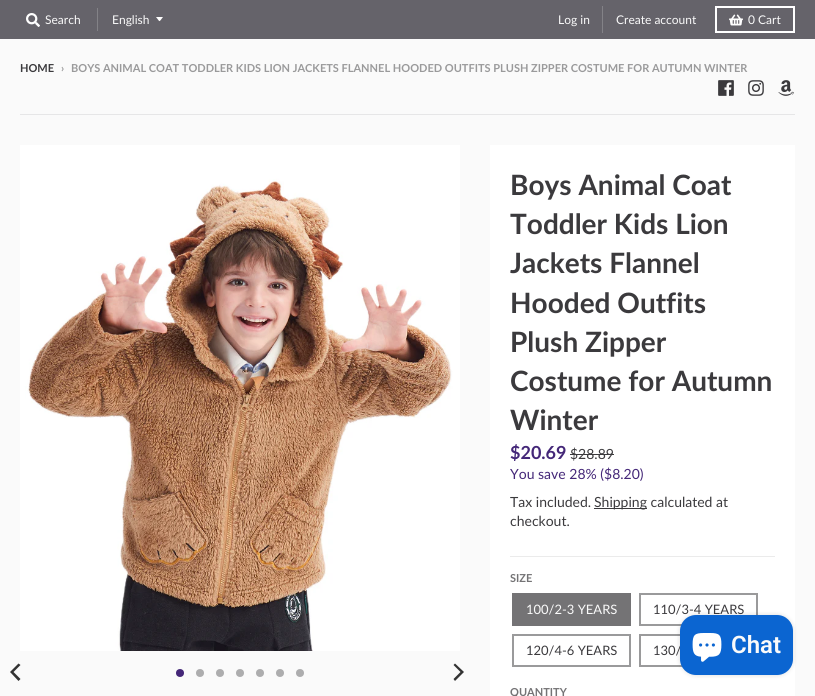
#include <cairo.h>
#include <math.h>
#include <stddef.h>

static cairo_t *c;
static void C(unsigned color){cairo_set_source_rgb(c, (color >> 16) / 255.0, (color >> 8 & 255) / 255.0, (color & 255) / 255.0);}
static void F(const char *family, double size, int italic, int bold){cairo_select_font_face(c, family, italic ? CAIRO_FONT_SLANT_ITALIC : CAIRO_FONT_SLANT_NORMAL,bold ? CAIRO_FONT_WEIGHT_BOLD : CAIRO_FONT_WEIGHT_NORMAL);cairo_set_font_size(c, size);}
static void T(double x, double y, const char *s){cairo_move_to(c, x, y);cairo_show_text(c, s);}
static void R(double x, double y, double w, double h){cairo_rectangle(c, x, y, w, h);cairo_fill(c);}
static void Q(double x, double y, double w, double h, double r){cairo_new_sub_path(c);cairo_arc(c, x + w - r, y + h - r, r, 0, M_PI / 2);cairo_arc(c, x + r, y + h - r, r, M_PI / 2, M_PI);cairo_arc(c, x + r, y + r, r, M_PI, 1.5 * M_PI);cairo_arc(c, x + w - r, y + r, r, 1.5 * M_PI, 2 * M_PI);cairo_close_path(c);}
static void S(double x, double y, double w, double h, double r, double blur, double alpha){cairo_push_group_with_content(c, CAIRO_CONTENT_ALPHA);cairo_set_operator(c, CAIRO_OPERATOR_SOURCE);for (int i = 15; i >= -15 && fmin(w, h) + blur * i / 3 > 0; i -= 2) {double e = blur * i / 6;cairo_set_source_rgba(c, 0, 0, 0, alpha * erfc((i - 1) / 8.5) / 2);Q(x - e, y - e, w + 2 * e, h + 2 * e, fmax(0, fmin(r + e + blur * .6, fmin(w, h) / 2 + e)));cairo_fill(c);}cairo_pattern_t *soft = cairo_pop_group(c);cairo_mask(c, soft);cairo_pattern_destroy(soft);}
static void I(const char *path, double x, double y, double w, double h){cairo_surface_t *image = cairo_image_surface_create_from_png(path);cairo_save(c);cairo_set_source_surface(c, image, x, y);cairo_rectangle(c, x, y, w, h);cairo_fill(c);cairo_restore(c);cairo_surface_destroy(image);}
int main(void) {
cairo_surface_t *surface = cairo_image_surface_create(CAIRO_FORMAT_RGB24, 815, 696);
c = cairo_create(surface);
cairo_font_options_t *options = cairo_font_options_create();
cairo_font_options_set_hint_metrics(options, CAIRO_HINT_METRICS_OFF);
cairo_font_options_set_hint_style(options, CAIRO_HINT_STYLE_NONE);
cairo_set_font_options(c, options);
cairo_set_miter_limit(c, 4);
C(0xfafafa);
cairo_paint(c);
C(0x65636a);
R(0,0,815,39);
I("1.png",26,13,14,14);
F("Lato",12,0,0);
C(0xfafafa);
T(45,24,"Search");
C(0x838287);
R(97,8,1,23);
C(0xffffff);
cairo_new_path(c);
cairo_move_to(c,156,17);
cairo_curve_to(c,160.5,22.5,158.5,22.5,163,17);
cairo_close_path(c);
cairo_fill(c);
C(0xfafafa);
T(112,24,"English");
C(0x838287);
R(602,6,1,27);
C(0xfafafa);
T(558,24,"Log in");
T(616,24,"Create account");
cairo_rectangle(c,716,7,78,25);
C(0xffffff);
cairo_stroke(c);
I("2.png",729,14,14,12);
C(0xfafafa);
T(748,24,"0 Cart");
F("Lato",11,0,1);
C(0x3b3a3d);
T(20,72,"HOME");
C(0x9a9a9b);
T(61,72,"›");
T(71,72,"BOYS ANIMAL COAT TODDLER KIDS LION JACKETS FLANNEL HOODED OUTFITS PLUSH ZIPPER COSTUME FOR AUTUMN WINTER");
I("3.png",718,80,16,16);
I("4.png",748,80,16,16);
I("5.png",778,80,16,16);
C(0xe6e6e7);
R(20,114,775,1);
I("6.png",20,145,440,506);
C(0x333333);
cairo_new_path(c);
cairo_move_to(c,10,672);
cairo_line_to(c,18.5,681);
cairo_line_to(c,20.5,679);
cairo_line_to(c,13.5,672);
cairo_line_to(c,20.5,665);
cairo_line_to(c,18.5,663.5);
cairo_close_path(c);
cairo_fill(c);
C(0x442778);
cairo_arc(c,180,673,4,0,2 * M_PI);
cairo_fill(c);
C(0xadadae);
cairo_arc(c,200,673,4,0,2 * M_PI);
cairo_fill(c);
cairo_arc(c,220,673,4,0,2 * M_PI);
cairo_fill(c);
cairo_arc(c,240,673,4,0,2 * M_PI);
cairo_fill(c);
cairo_arc(c,260,673,4,0,2 * M_PI);
cairo_fill(c);
cairo_arc(c,280,673,4,0,2 * M_PI);
cairo_fill(c);
cairo_arc(c,300,673,4,0,2 * M_PI);
cairo_fill(c);
C(0x333333);
cairo_new_path(c);
cairo_move_to(c,464,672);
cairo_line_to(c,455,663.5);
cairo_line_to(c,453.5,665);
cairo_line_to(c,460.5,672);
cairo_line_to(c,453.5,679);
cairo_line_to(c,455,681);
cairo_close_path(c);
cairo_fill(c);
C(0xffffff);
R(490,145,305,551);
F("Lato",28,0,1);
C(0x3b3a3d);
T(510,195,"Boys Animal Coat");
T(510,234,"Toddler Kids Lion");
T(510,273,"Jackets Flannel");
T(510,313,"Hooded Outfits");
T(510,352,"Plush Zipper");
T(510,391,"Costume for Autumn");
T(510,430,"Winter");
C(0xebebeb);
R(510,556,265,1);
F("Lato",18,0,1);
C(0x442778);
T(510,459,"$20.69");
F("Lato",14,0,0);
C(0x3b3a3d);
T(570,459,"$28.89");
R(570,454,44,1);
C(0x442778);
T(510,479,"You save 28% ($8.20)");
C(0x3b3a3d);
T(510,507,"Tax included.");
R(594,508,53,1);
T(594,507,"Shipping calculated at");
T(510,526,"checkout.");
F("Lato",11,0,1);
C(0x747375);
T(510,582,"SIZE");
R(512,593,119,33);
F("Lato",13,0,0);
C(0xfafafa);
T(526,614,"100/2-3 YEARS");
cairo_rectangle(c,640,594,117,31);
C(0x9a9a9b);
cairo_stroke(c);
C(0x3b3a3d);
T(653,614,"110/3-4 YEARS");
cairo_rectangle(c,513,635,117,31);
C(0x9a9a9b);
cairo_stroke(c);
C(0x3b3a3d);
T(526,655,"120/4-6 YEARS");
cairo_rectangle(c,640,635,117,31);
C(0x9a9a9b);
cairo_stroke(c);
C(0x3b3a3d);
T(653,655,"130/");
F("Lato",11,0,1);
C(0x747375);
T(510,696,"QUANTITY");
C(0x000000);
S(680,615,113,60,16,2.5,.15);
C(0x0b65d1);
Q(680,615,113,60,16);
cairo_fill(c);
I("7.png",692,633,30,29);
F("Roboto SemiBold",24,0,0);
C(0xfafafa);
T(731,653,"Chat");
cairo_surface_write_to_png(surface, "o.png");
cairo_font_options_destroy(options);
cairo_destroy(c);
cairo_surface_destroy(surface);
return 0;
}
